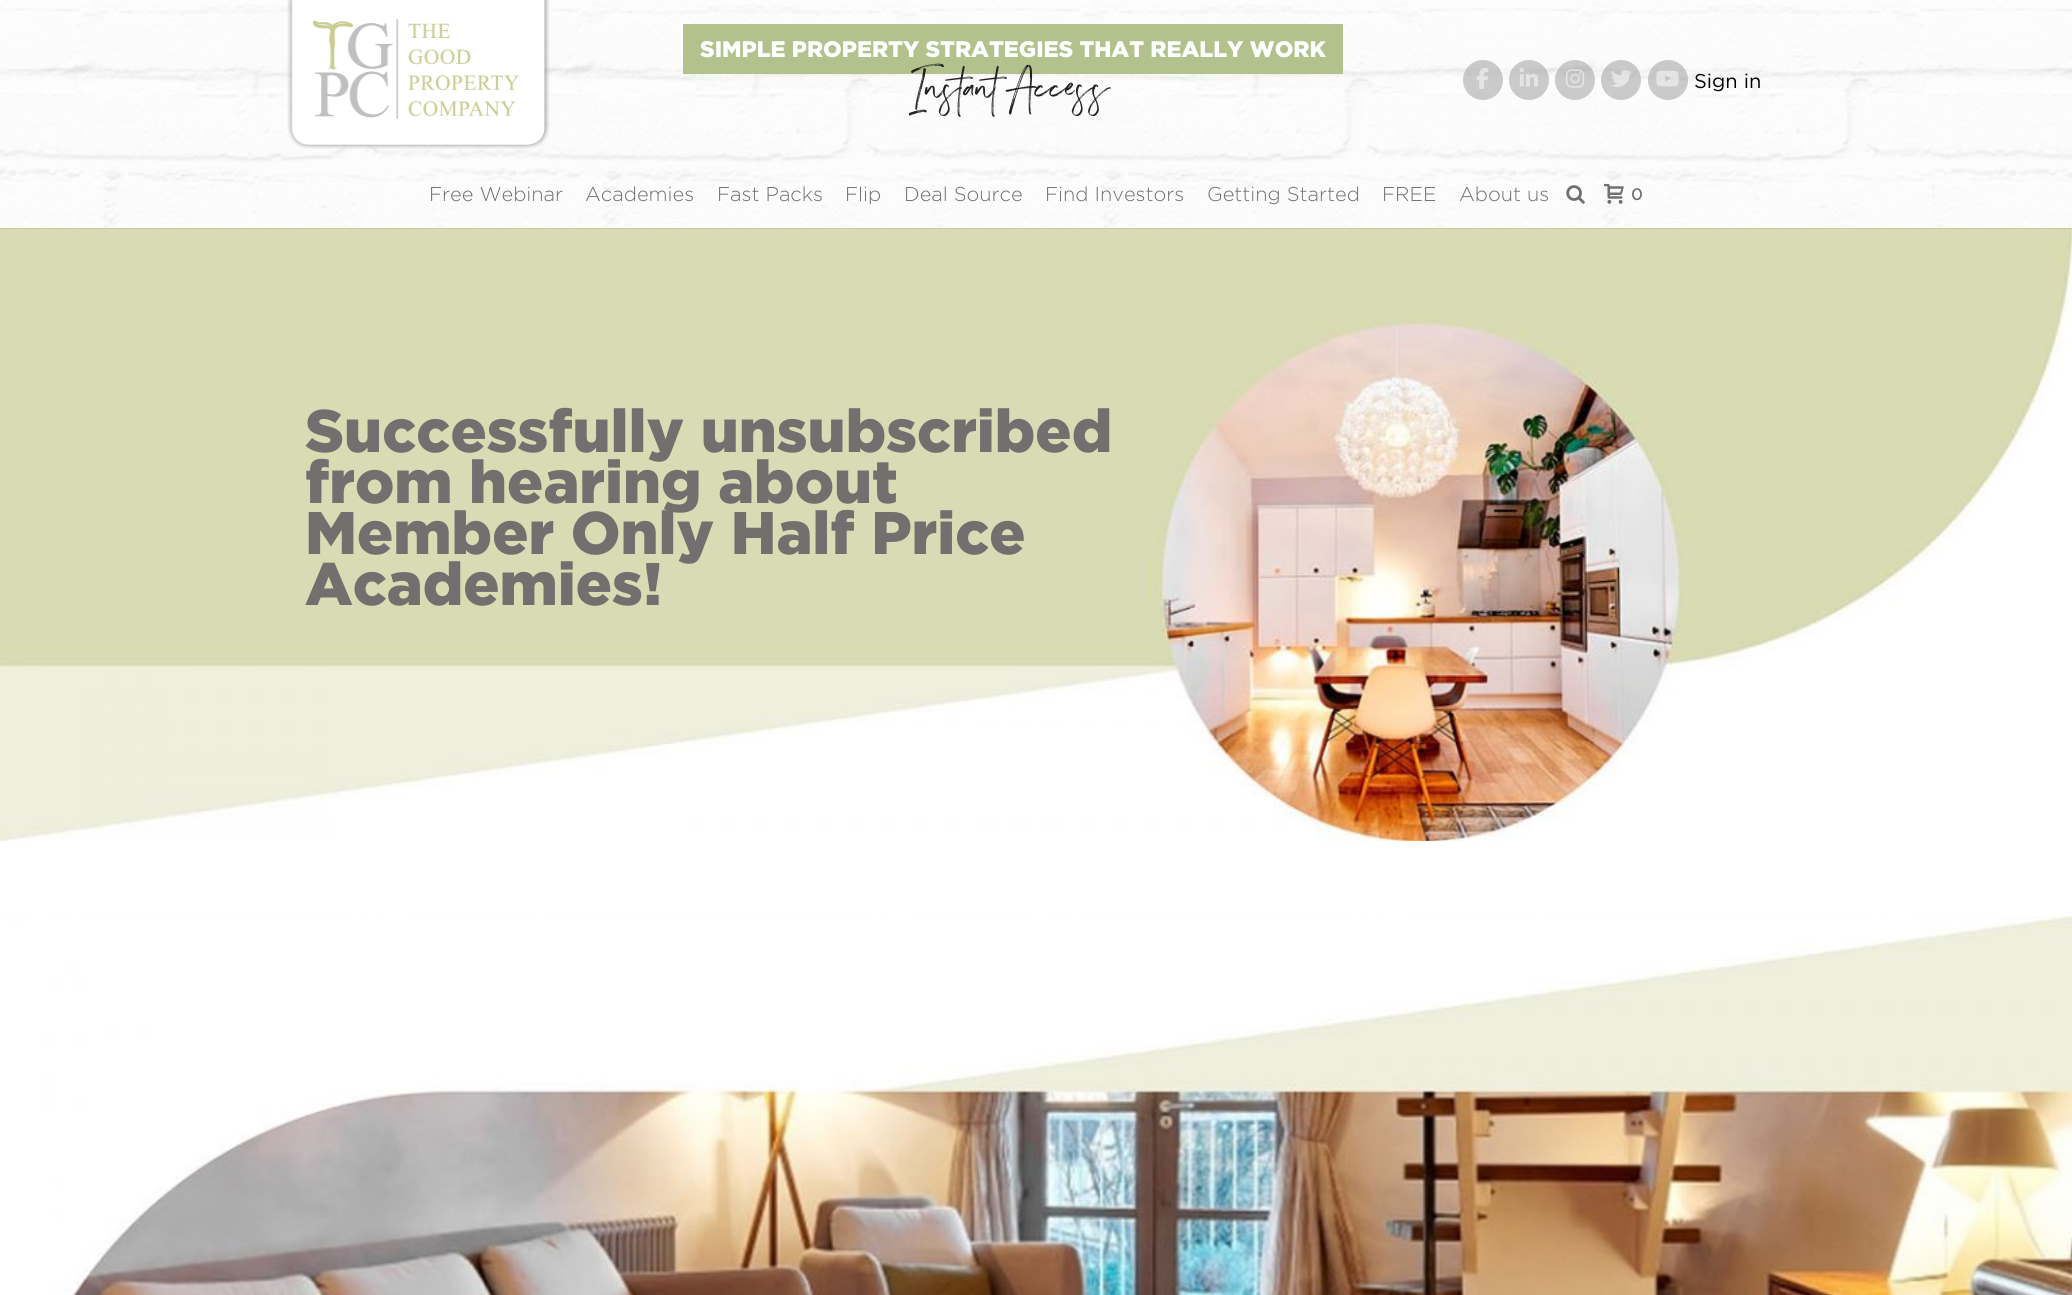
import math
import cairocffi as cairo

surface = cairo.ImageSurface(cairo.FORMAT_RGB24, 2072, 1295)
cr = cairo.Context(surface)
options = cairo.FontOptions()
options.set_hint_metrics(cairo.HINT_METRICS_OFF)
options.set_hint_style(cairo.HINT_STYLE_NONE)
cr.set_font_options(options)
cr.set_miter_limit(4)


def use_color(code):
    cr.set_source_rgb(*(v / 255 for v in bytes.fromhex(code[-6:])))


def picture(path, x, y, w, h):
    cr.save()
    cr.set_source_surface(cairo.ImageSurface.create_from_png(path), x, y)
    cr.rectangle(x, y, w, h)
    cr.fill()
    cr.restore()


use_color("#ffffff")
cr.paint()
use_color("#cacc98")
cr.rectangle(0, 228, 2072, 1)
cr.fill()
picture("img1.png", 0, 0, 2072, 228)
picture("img2.png", 287, 0, 263, 149)
use_color("#b3c28d")
cr.rectangle(683, 24, 660, 50)
cr.fill()
cr.select_font_face("Gotham Black")
cr.set_font_size(22.5)
use_color("#ffffff")
cr.move_to(700, 57)
cr.show_text("SIMPLE PROPERTY STRATEGIES THAT REALLY WORK")
cr.select_font_face("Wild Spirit")
cr.set_font_size(60)
use_color("#222222")
cr.move_to(916, 108)
cr.show_text("Instant Access")
cr.set_source_rgba(0.6, 0.6, 0.6, 0.5)
cr.new_path()
cr.arc(1483, 80, 20, 0, 2 * math.pi)
cr.fill()
picture("img3.png", 1476, 68, 13, 21)
cr.arc(1529, 80, 20, 0, 2 * math.pi)
cr.fill()
picture("img4.png", 1519, 68, 19, 19)
cr.arc(1575, 80, 20, 0, 2 * math.pi)
cr.fill()
picture("img5.png", 1565, 69, 20, 19)
cr.arc(1621, 80, 20, 0, 2 * math.pi)
cr.fill()
picture("img6.png", 1611, 70, 21, 17)
cr.arc(1668, 80, 20, 0, 2 * math.pi)
cr.fill()
picture("img7.png", 1656, 70, 23, 17)
cr.select_font_face("Gotham")
cr.set_font_size(20)
use_color("#000000")
cr.move_to(1694, 88)
cr.show_text("Sign in")
cr.select_font_face("Gotham Light")
use_color("#72706f")
cr.move_to(429, 201)
cr.show_text("Free Webinar")
cr.move_to(585, 201)
cr.show_text("Academies")
cr.move_to(717, 201)
cr.show_text("Fast Packs")
cr.move_to(845, 201)
cr.show_text("Flip")
cr.move_to(904, 201)
cr.show_text("Deal Source")
cr.move_to(1045, 201)
cr.show_text("Find Investors")
cr.move_to(1207, 201)
cr.show_text("Getting Started")
cr.move_to(1382, 201)
cr.show_text("FREE")
cr.move_to(1459, 201)
cr.show_text("About us")
picture("img8.png", 1566, 185, 19, 19)
picture("img9.png", 1604, 184, 20, 20)
cr.select_font_face("Gotham", cairo.FONT_SLANT_NORMAL, cairo.FONT_WEIGHT_BOLD)
cr.set_font_size(16)
cr.move_to(1631, 200)
cr.show_text("0")
picture("img10.png", 0, 229, 2072, 612)
cr.select_font_face("Gotham Black")
cr.set_font_size(60)
cr.move_to(305, 452)
cr.show_text("Successfully unsubscribed")
cr.move_to(305, 503)
cr.show_text("from hearing about")
cr.move_to(305, 554)
cr.show_text("Member Only Half Price")
cr.move_to(305, 605)
cr.show_text("Academies!")
picture("img12.png", 0, 916, 2072, 1)
picture("img11.png", 0, 916, 2072, 379)
surface.write_to_png("result.png")
